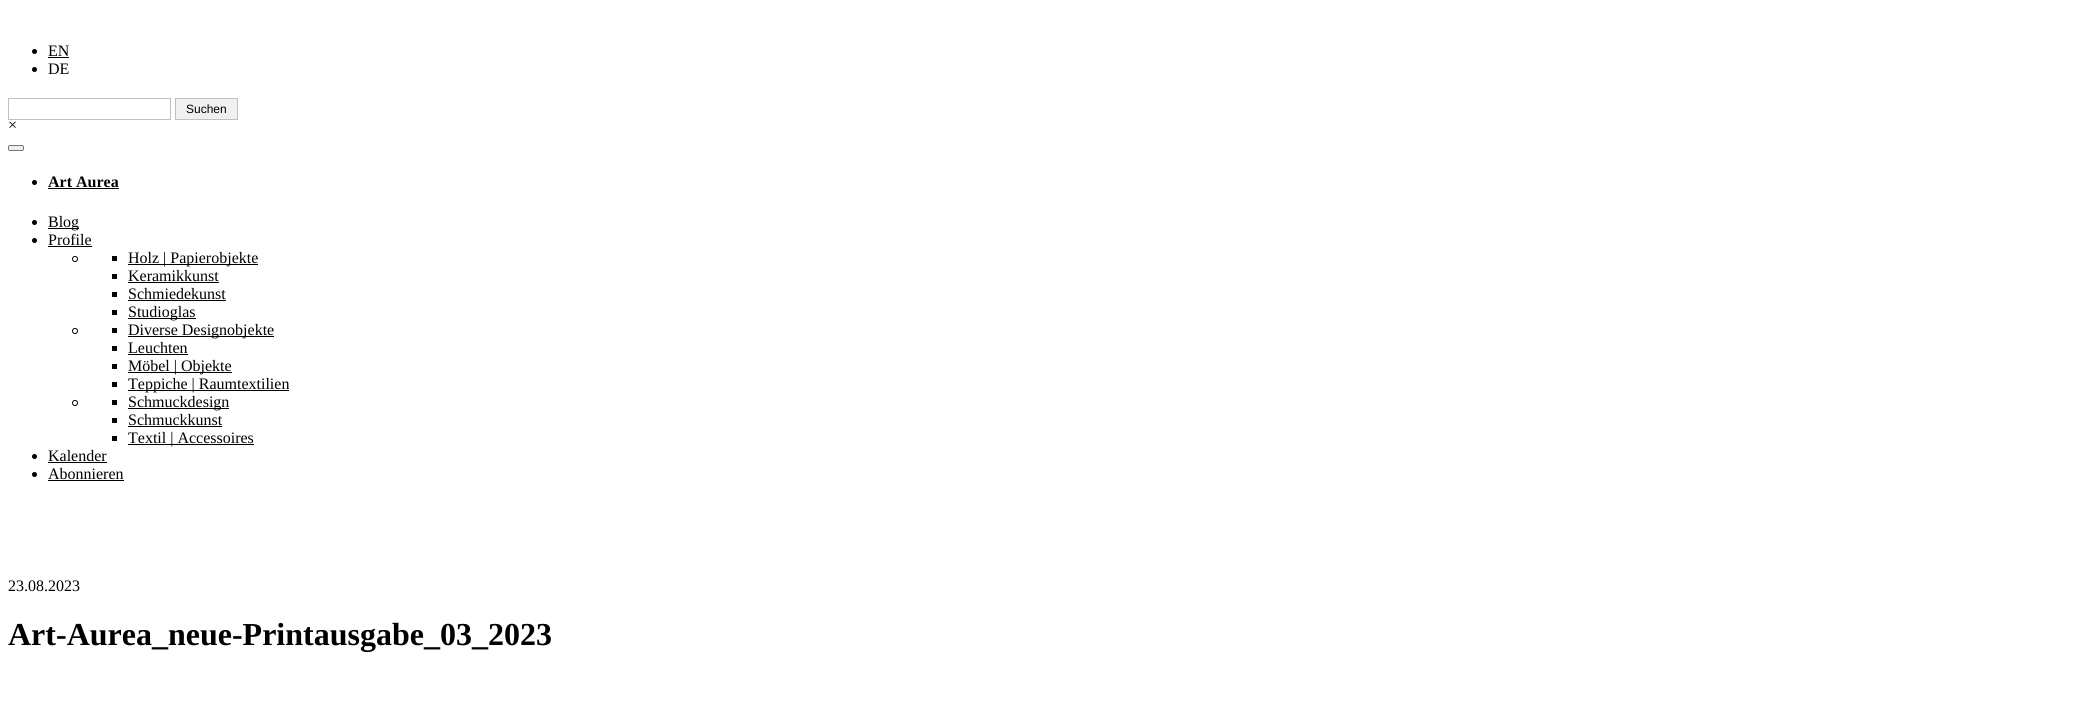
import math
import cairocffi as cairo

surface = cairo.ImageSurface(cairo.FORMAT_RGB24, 2078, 710)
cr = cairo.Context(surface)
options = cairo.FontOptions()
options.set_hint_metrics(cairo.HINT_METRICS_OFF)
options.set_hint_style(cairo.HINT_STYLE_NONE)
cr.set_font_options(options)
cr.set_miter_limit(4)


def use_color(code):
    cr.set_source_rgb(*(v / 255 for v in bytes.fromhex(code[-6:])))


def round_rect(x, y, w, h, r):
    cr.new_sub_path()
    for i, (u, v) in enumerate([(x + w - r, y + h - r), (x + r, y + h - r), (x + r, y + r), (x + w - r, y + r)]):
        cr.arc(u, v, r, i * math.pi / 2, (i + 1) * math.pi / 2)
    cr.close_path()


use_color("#ffffff")
cr.paint()
use_color("#000000")
cr.arc(34.5, 51.5, 2.5, 0, 2 * math.pi)
cr.fill()
cr.select_font_face("Liberation Serif")
cr.set_font_size(16)
cr.move_to(48, 56)
cr.show_text("EN")
cr.rectangle(48, 57, 21, 1)
cr.fill()
cr.arc(34.5, 69.5, 2.5, 0, 2 * math.pi)
cr.fill()
cr.move_to(48, 74)
cr.show_text("DE")
cr.rectangle(8.5, 98.5, 162, 21)
use_color("#c0c0c0")
cr.set_line_width(1)
cr.stroke()
use_color("#f0f0f0")
cr.rectangle(175.5, 98.5, 62, 21)
cr.fill_preserve()
use_color("#c0c0c0")
cr.stroke()
cr.select_font_face("Liberation Sans")
cr.set_font_size(12)
use_color("#000000")
cr.move_to(186, 113)
cr.show_text("Suchen")
cr.select_font_face("Liberation Serif")
cr.set_font_size(16)
cr.move_to(8, 130)
cr.show_text("×")
use_color("#efefef")
round_rect(8.5, 145.5, 15, 5, 1.5)
cr.fill_preserve()
use_color("#767676")
cr.stroke()
use_color("#000000")
cr.arc(34.5, 182.5, 2.5, 0, 2 * math.pi)
cr.fill()
cr.select_font_face("Liberation Serif", cairo.FONT_SLANT_NORMAL, cairo.FONT_WEIGHT_BOLD)
cr.move_to(48, 187)
cr.show_text("Art Aurea")
cr.rectangle(48, 188, 71, 1)
cr.fill()
cr.arc(34.5, 222.5, 2.5, 0, 2 * math.pi)
cr.fill()
cr.rectangle(48, 228, 31, 1)
cr.fill()
cr.select_font_face("Liberation Serif")
cr.move_to(48, 227)
cr.show_text("Blog")
cr.new_path()
cr.arc(34.5, 240.5, 2.5, 0, 2 * math.pi)
cr.fill()
cr.move_to(48, 245)
cr.show_text("Profile")
cr.rectangle(48, 246, 44, 1)
cr.fill()
cr.arc(75, 259, 2.5, 0, 2 * math.pi)
cr.stroke()
cr.rectangle(112, 256, 5, 5)
cr.fill()
cr.rectangle(128, 264, 130, 1)
cr.fill()
cr.move_to(128, 263)
cr.show_text("Holz | Papierobjekte")
cr.rectangle(112, 274, 5, 5)
cr.fill()
cr.move_to(128, 281)
cr.show_text("Keramikkunst")
cr.rectangle(128, 282, 91, 1)
cr.fill()
cr.rectangle(112, 292, 5, 5)
cr.fill()
cr.move_to(128, 299)
cr.show_text("Schmiedekunst")
cr.rectangle(128, 300, 98, 1)
cr.fill()
cr.rectangle(112, 310, 5, 5)
cr.fill()
cr.rectangle(128, 318, 68, 1)
cr.fill()
cr.move_to(128, 317)
cr.show_text("Studioglas")
cr.new_path()
cr.arc(75, 331, 2.5, 0, 2 * math.pi)
cr.stroke()
cr.rectangle(112, 328, 5, 5)
cr.fill()
cr.rectangle(128, 336, 146, 1)
cr.fill()
cr.move_to(128, 335)
cr.show_text("Diverse Designobjekte")
cr.rectangle(112, 346, 5, 5)
cr.fill()
cr.move_to(128, 353)
cr.show_text("Leuchten")
cr.rectangle(128, 354, 60, 1)
cr.fill()
cr.rectangle(112, 364, 5, 5)
cr.fill()
cr.rectangle(128, 372, 104, 1)
cr.fill()
cr.move_to(128, 371)
cr.show_text("Möbel | Objekte")
cr.rectangle(112, 382, 5, 5)
cr.fill()
cr.rectangle(128, 390, 161, 1)
cr.fill()
cr.move_to(128, 389)
cr.show_text("Teppiche | Raumtextilien")
cr.new_path()
cr.arc(75, 403, 2.5, 0, 2 * math.pi)
cr.stroke()
cr.rectangle(112, 400, 5, 5)
cr.fill()
cr.rectangle(128, 408, 101, 1)
cr.fill()
cr.move_to(128, 407)
cr.show_text("Schmuckdesign")
cr.rectangle(112, 418, 5, 5)
cr.fill()
cr.move_to(128, 425)
cr.show_text("Schmuckkunst")
cr.rectangle(128, 426, 94, 1)
cr.fill()
cr.rectangle(112, 436, 5, 5)
cr.fill()
cr.rectangle(128, 444, 126, 1)
cr.fill()
cr.move_to(128, 443)
cr.show_text("Textil | Accessoires")
cr.new_path()
cr.arc(34.5, 456.5, 2.5, 0, 2 * math.pi)
cr.fill()
cr.move_to(48, 461)
cr.show_text("Kalender")
cr.rectangle(48, 462, 59, 1)
cr.fill()
cr.arc(34.5, 474.5, 2.5, 0, 2 * math.pi)
cr.fill()
cr.move_to(48, 479)
cr.show_text("Abonnieren")
cr.rectangle(48, 480, 76, 1)
cr.fill()
cr.move_to(8, 591)
cr.show_text("23.08.2023")
cr.select_font_face("Liberation Serif", cairo.FONT_SLANT_NORMAL, cairo.FONT_WEIGHT_BOLD)
cr.set_font_size(32)
cr.move_to(8, 645)
cr.show_text("Art-Aurea_neue-Printausgabe_03_2023")
surface.write_to_png("result.png")
